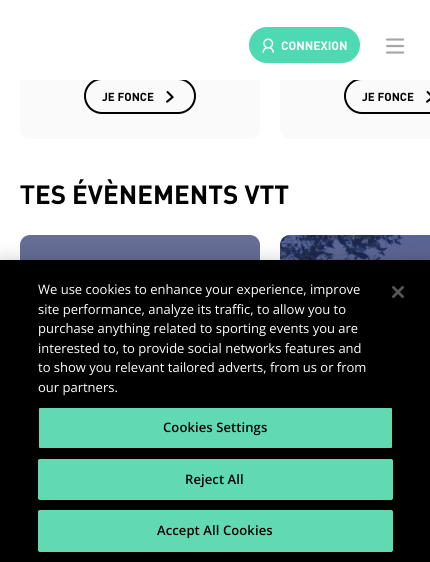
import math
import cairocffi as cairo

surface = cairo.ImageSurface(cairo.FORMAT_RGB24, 430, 562)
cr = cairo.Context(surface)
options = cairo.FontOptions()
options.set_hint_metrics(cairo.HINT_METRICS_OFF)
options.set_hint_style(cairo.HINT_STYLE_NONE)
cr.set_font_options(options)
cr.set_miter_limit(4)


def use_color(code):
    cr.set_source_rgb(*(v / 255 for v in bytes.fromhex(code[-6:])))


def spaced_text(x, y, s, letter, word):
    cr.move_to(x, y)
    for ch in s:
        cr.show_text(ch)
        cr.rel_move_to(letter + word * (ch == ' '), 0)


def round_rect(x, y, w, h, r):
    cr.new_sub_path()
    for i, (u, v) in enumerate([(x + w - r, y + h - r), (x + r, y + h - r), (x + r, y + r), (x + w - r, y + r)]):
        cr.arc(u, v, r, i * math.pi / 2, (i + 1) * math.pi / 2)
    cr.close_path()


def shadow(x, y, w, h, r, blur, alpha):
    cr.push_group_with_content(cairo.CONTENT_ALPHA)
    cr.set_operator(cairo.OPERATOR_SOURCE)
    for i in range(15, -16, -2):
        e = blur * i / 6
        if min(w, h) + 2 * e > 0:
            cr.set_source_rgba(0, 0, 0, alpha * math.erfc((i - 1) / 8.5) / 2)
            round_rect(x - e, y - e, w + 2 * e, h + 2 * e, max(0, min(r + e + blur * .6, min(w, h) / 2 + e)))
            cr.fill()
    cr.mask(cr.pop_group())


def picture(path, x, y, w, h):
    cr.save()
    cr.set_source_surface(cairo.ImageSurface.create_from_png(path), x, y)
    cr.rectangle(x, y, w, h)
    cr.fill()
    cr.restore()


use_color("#ffffff")
cr.paint()
use_color("#fafafa")
round_rect(20, -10, 240, 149, 10)
cr.fill()
round_rect(85, 79, 110, 34, 17)
use_color("#000000")
cr.stroke()
use_color("#fafafa")
cr.new_path()
cr.move_to(290, -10)
cr.line_to(430, -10)
cr.line_to(430, 139)
cr.line_to(290, 139)
cr.curve_to(284.5, 139, 280, 134.5, 280, 129)
cr.line_to(280, 0)
cr.curve_to(280, -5.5, 284.5, -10, 290, -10)
cr.close_path()
cr.fill()
round_rect(345, 79, 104, 34, 17)
use_color("#000000")
cr.stroke()
use_color("#ffffff")
cr.rectangle(20, 0, 410, 80)
cr.fill()
use_color("#4dd9b2")
round_rect(249, 27, 111, 36, 18)
cr.fill()
picture("img1.png", 262, 38, 12, 15)
cr.select_font_face("DIN", cairo.FONT_SLANT_NORMAL, cairo.FONT_WEIGHT_BOLD)
cr.set_font_size(12)
use_color("#ffffff")
cr.move_to(281, 50)
cr.show_text("CONNEXION")
picture("img2.png", 386, 38, 19, 16)
cr.set_font_size(11.5)
use_color("#000000")
cr.move_to(102, 101)
cr.show_text("JE FONCE")
picture("img3.png", 166, 91, 8, 12)
cr.move_to(362, 101)
cr.show_text("JE FONCE")
picture("img4.png", 426, 91, 4, 12)
cr.select_font_face("Noto Sans SemiBold")
cr.set_font_size(26)
cr.move_to(20, 204)
cr.show_text("T")
cr.select_font_face("DIN", cairo.FONT_SLANT_NORMAL, cairo.FONT_WEIGHT_BOLD)
cr.move_to(35, 204)
cr.show_text("ES ÉVÈNEMENTS VTT")
use_color("#666d96")
cr.new_path()
cr.move_to(30, 235)
cr.line_to(250, 235)
cr.curve_to(255.5, 235, 260, 239.5, 260, 245)
cr.line_to(260, 379)
cr.line_to(20, 379)
cr.line_to(20, 245)
cr.curve_to(20, 239.5, 24.5, 235, 30, 235)
cr.close_path()
cr.fill()
use_color("#fafafa")
cr.new_path()
cr.move_to(290, 235)
cr.line_to(430, 235)
cr.line_to(430, 531)
cr.line_to(290, 531)
cr.curve_to(284.5, 531, 280, 526.5, 280, 521)
cr.line_to(280, 245)
cr.curve_to(280, 239.5, 284.5, 235, 290, 235)
cr.close_path()
cr.fill()
picture("img5.png", 280, 235, 150, 25)
cr.set_source_rgba(0.153, 0.192, 0.42, 0.7)
cr.new_path()
cr.move_to(290, 235)
cr.line_to(430, 235)
cr.line_to(430, 379)
cr.line_to(280, 379)
cr.line_to(280, 245)
cr.curve_to(280, 239.5, 284.5, 235, 290, 235)
cr.close_path()
cr.fill()
use_color("#000000")
shadow(0, 260, 430, 302, 0, 9, 0.2)
use_color("#000000")
cr.rectangle(0, 260, 430, 302)
cr.fill()
cr.select_font_face("Open Sans")
cr.set_font_size(13)
use_color("#ffffff")
cr.move_to(38, 294)
cr.show_text("We use cookies to enhance your experience, improve")
cr.move_to(38, 314)
cr.show_text("site performance, analyze its traffic, to allow you to")
cr.move_to(38, 333)
cr.show_text("purchase anything related to sporting events you are")
cr.move_to(38, 353)
cr.show_text("interested to, to provide social networks features and")
cr.move_to(38, 372)
cr.show_text("to show you relevant tailored adverts, from us or from")
cr.move_to(38, 392)
cr.show_text("our partners.")
use_color("#61d9b2")
round_rect(38.5, 407.5, 354, 41, 1.5)
cr.fill_preserve()
use_color("#000000")
cr.set_line_width(1)
cr.stroke()
cr.select_font_face("Open Sans SemiBold")
spaced_text(163, 432, "Cookies Settings", 0.1, 0)
use_color("#61d9b2")
round_rect(38.5, 459.5, 354, 40, 1.5)
cr.fill_preserve()
cr.stroke()
use_color("#000000")
spaced_text(185, 484, "Reject All", 0.1, 0)
use_color("#61d9b2")
round_rect(38.5, 510.5, 354, 41, 1.5)
cr.fill_preserve()
cr.stroke()
use_color("#000000")
spaced_text(157, 535, "Accept All Cookies", 0.1, 0)
picture("img6.png", 392, 286, 12, 12)
surface.write_to_png("result.png")
